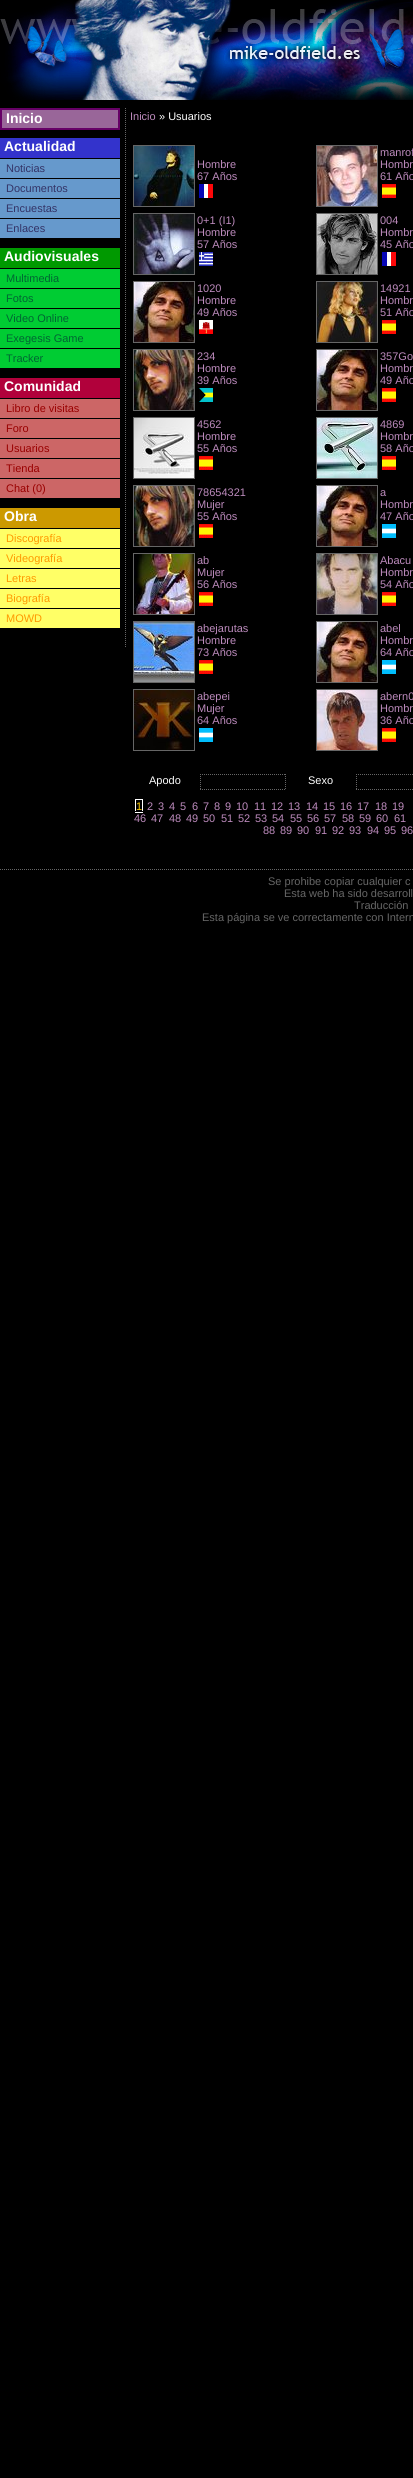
import math
import cairocffi as cairo

surface = cairo.ImageSurface(cairo.FORMAT_RGB24, 413, 2478)
cr = cairo.Context(surface)
options = cairo.FontOptions()
options.set_hint_metrics(cairo.HINT_METRICS_OFF)
options.set_hint_style(cairo.HINT_STYLE_NONE)
cr.set_font_options(options)
cr.set_miter_limit(4)


def use_color(code):
    cr.set_source_rgb(*(v / 255 for v in bytes.fromhex(code[-6:])))


def picture(path, x, y, w, h):
    cr.save()
    cr.set_source_surface(cairo.ImageSurface.create_from_png(path), x, y)
    cr.rectangle(x, y, w, h)
    cr.fill()
    cr.restore()


use_color("#000000")
cr.paint()
picture("img1.png", 0, 0, 413, 100)
cr.new_path()
cr.move_to(125.5, 108)
cr.line_to(125.5, 648)
use_color("#666666")
cr.set_line_width(1)
cr.set_dash([1, 1])
cr.stroke()
use_color("#996699")
cr.rectangle(1, 109, 118, 20)
cr.fill_preserve()
use_color("#660066")
cr.set_line_width(2)
cr.set_dash([])
cr.stroke()
cr.select_font_face("Liberation Sans", cairo.FONT_SLANT_NORMAL, cairo.FONT_WEIGHT_BOLD)
cr.set_font_size(14)
use_color("#ffffff")
cr.move_to(6, 123)
cr.show_text("Inicio")
use_color("#3333cc")
cr.rectangle(0, 138, 120, 20)
cr.fill()
use_color("#ffffff")
cr.move_to(4, 151)
cr.show_text("Actualidad")
use_color("#6699cc")
cr.rectangle(0, 159, 120, 19)
cr.fill()
cr.select_font_face("Liberation Sans")
cr.set_font_size(11)
use_color("#333366")
cr.move_to(6, 172)
cr.show_text("Noticias")
use_color("#6699cc")
cr.rectangle(0, 179, 120, 19)
cr.fill()
use_color("#333366")
cr.move_to(6, 192)
cr.show_text("Documentos")
use_color("#6699cc")
cr.rectangle(0, 199, 120, 19)
cr.fill()
use_color("#333366")
cr.move_to(6, 212)
cr.show_text("Encuestas")
use_color("#6699cc")
cr.rectangle(0, 219, 120, 19)
cr.fill()
use_color("#333366")
cr.move_to(6, 232)
cr.show_text("Enlaces")
use_color("#009900")
cr.rectangle(0, 248, 120, 20)
cr.fill()
cr.select_font_face("Liberation Sans", cairo.FONT_SLANT_NORMAL, cairo.FONT_WEIGHT_BOLD)
cr.set_font_size(14)
use_color("#ffffff")
cr.move_to(4, 261)
cr.show_text("Audiovisuales")
use_color("#00cc33")
cr.rectangle(0, 269, 120, 19)
cr.fill()
cr.select_font_face("Liberation Sans")
cr.set_font_size(11)
use_color("#006633")
cr.move_to(6, 282)
cr.show_text("Multimedia")
use_color("#00cc33")
cr.rectangle(0, 289, 120, 19)
cr.fill()
use_color("#006633")
cr.move_to(6, 302)
cr.show_text("Fotos")
use_color("#00cc33")
cr.rectangle(0, 309, 120, 19)
cr.fill()
use_color("#006633")
cr.move_to(6, 322)
cr.show_text("Video Online")
use_color("#00cc33")
cr.rectangle(0, 329, 120, 19)
cr.fill()
use_color("#006633")
cr.move_to(6, 342)
cr.show_text("Exegesis Game")
use_color("#00cc33")
cr.rectangle(0, 349, 120, 19)
cr.fill()
use_color("#006633")
cr.move_to(6, 362)
cr.show_text("Tracker")
use_color("#b1013b")
cr.rectangle(0, 378, 120, 20)
cr.fill()
cr.select_font_face("Liberation Sans", cairo.FONT_SLANT_NORMAL, cairo.FONT_WEIGHT_BOLD)
cr.set_font_size(14)
use_color("#ffffff")
cr.move_to(4, 391)
cr.show_text("Comunidad")
use_color("#cc6666")
cr.rectangle(0, 399, 120, 19)
cr.fill()
cr.select_font_face("Liberation Sans")
cr.set_font_size(11)
use_color("#990000")
cr.move_to(6, 412)
cr.show_text("Libro de visitas")
use_color("#cc6666")
cr.rectangle(0, 419, 120, 19)
cr.fill()
use_color("#990000")
cr.move_to(6, 432)
cr.show_text("Foro")
use_color("#cc6666")
cr.rectangle(0, 439, 120, 19)
cr.fill()
use_color("#990000")
cr.move_to(6, 452)
cr.show_text("Usuarios")
use_color("#cc6666")
cr.rectangle(0, 459, 120, 19)
cr.fill()
use_color("#990000")
cr.move_to(6, 472)
cr.show_text("Tienda")
use_color("#cc6666")
cr.rectangle(0, 479, 120, 19)
cr.fill()
use_color("#990000")
cr.move_to(6, 492)
cr.show_text("Chat (0)")
use_color("#cc9900")
cr.rectangle(0, 508, 120, 20)
cr.fill()
cr.select_font_face("Liberation Sans", cairo.FONT_SLANT_NORMAL, cairo.FONT_WEIGHT_BOLD)
cr.set_font_size(14)
use_color("#ffffff")
cr.move_to(4, 521)
cr.show_text("Obra")
use_color("#ffff66")
cr.rectangle(0, 529, 120, 19)
cr.fill()
cr.select_font_face("Liberation Sans")
cr.set_font_size(11)
use_color("#ff9900")
cr.move_to(6, 542)
cr.show_text("Discografía")
use_color("#ffff66")
cr.rectangle(0, 549, 120, 19)
cr.fill()
use_color("#ff9900")
cr.move_to(6, 562)
cr.show_text("Videografía")
use_color("#ffff66")
cr.rectangle(0, 569, 120, 19)
cr.fill()
use_color("#ff9900")
cr.move_to(6, 582)
cr.show_text("Letras")
use_color("#ffff66")
cr.rectangle(0, 589, 120, 19)
cr.fill()
use_color("#ff9900")
cr.move_to(6, 602)
cr.show_text("Biografía")
use_color("#ffff66")
cr.rectangle(0, 609, 120, 19)
cr.fill()
use_color("#ff9900")
cr.move_to(6, 622)
cr.show_text("MOWD")
use_color("#bd8bbd")
cr.move_to(130, 120)
cr.show_text("Inicio")
use_color("#ffffff")
cr.move_to(159, 120)
cr.show_text("» Usuarios")
cr.rectangle(133.5, 145.5, 61, 61)
use_color("#666666")
cr.set_line_width(1)
cr.stroke()
picture("img2.png", 134, 146, 60, 60)
use_color("#bd8bbd")
cr.move_to(197, 168)
cr.show_text("Hombre")
cr.move_to(197, 180)
cr.show_text("67 Años")
picture("img3.png", 199, 184, 14, 14)
cr.rectangle(316.5, 145.5, 61, 61)
use_color("#666666")
cr.stroke()
picture("img4.png", 317, 146, 60, 60)
use_color("#bd8bbd")
cr.move_to(380, 156)
cr.show_text("manrof")
cr.move_to(380, 168)
cr.show_text("Hombr")
cr.move_to(380, 180)
cr.show_text("61 Año")
picture("img5.png", 382, 184, 14, 14)
cr.rectangle(133.5, 213.5, 61, 61)
use_color("#666666")
cr.stroke()
picture("img6.png", 134, 214, 60, 60)
use_color("#bd8bbd")
cr.move_to(197, 224)
cr.show_text("0+1 (I1)")
cr.move_to(197, 236)
cr.show_text("Hombre")
cr.move_to(197, 248)
cr.show_text("57 Años")
picture("img7.png", 199, 252, 14, 14)
cr.rectangle(316.5, 213.5, 61, 61)
use_color("#666666")
cr.stroke()
picture("img8.png", 317, 214, 60, 60)
use_color("#bd8bbd")
cr.move_to(380, 224)
cr.show_text("004")
cr.move_to(380, 236)
cr.show_text("Hombr")
cr.move_to(380, 248)
cr.show_text("45 Año")
picture("img3.png", 382, 252, 14, 14)
cr.rectangle(133.5, 281.5, 61, 61)
use_color("#666666")
cr.stroke()
picture("img9.png", 134, 282, 60, 60)
use_color("#bd8bbd")
cr.move_to(197, 292)
cr.show_text("1020")
cr.move_to(197, 304)
cr.show_text("Hombre")
cr.move_to(197, 316)
cr.show_text("49 Años")
picture("img10.png", 199, 320, 14, 14)
cr.rectangle(316.5, 281.5, 61, 61)
use_color("#666666")
cr.stroke()
picture("img11.png", 317, 282, 60, 60)
use_color("#bd8bbd")
cr.move_to(380, 292)
cr.show_text("14921")
cr.move_to(380, 304)
cr.show_text("Hombr")
cr.move_to(380, 316)
cr.show_text("51 Año")
picture("img5.png", 382, 320, 14, 14)
cr.rectangle(133.5, 349.5, 61, 61)
use_color("#666666")
cr.stroke()
picture("img12.png", 134, 350, 60, 60)
use_color("#bd8bbd")
cr.move_to(197, 360)
cr.show_text("234")
cr.move_to(197, 372)
cr.show_text("Hombre")
cr.move_to(197, 384)
cr.show_text("39 Años")
picture("img13.png", 199, 388, 14, 14)
cr.rectangle(316.5, 349.5, 61, 61)
use_color("#666666")
cr.stroke()
picture("img9.png", 317, 350, 60, 60)
use_color("#bd8bbd")
cr.move_to(380, 360)
cr.show_text("357Go")
cr.move_to(380, 372)
cr.show_text("Hombr")
cr.move_to(380, 384)
cr.show_text("49 Año")
picture("img5.png", 382, 388, 14, 14)
cr.rectangle(133.5, 417.5, 61, 61)
use_color("#666666")
cr.stroke()
picture("img14.png", 134, 418, 60, 60)
use_color("#bd8bbd")
cr.move_to(197, 428)
cr.show_text("4562")
cr.move_to(197, 440)
cr.show_text("Hombre")
cr.move_to(197, 452)
cr.show_text("55 Años")
picture("img5.png", 199, 456, 14, 14)
cr.rectangle(316.5, 417.5, 61, 61)
use_color("#666666")
cr.stroke()
picture("img15.png", 317, 418, 60, 60)
use_color("#bd8bbd")
cr.move_to(380, 428)
cr.show_text("4869")
cr.move_to(380, 440)
cr.show_text("Hombr")
cr.move_to(380, 452)
cr.show_text("58 Año")
picture("img5.png", 382, 456, 14, 14)
cr.rectangle(133.5, 485.5, 61, 61)
use_color("#666666")
cr.stroke()
picture("img12.png", 134, 486, 60, 60)
use_color("#bd8bbd")
cr.move_to(197, 496)
cr.show_text("78654321")
cr.move_to(197, 508)
cr.show_text("Mujer")
cr.move_to(197, 520)
cr.show_text("55 Años")
picture("img5.png", 199, 524, 14, 14)
cr.rectangle(316.5, 485.5, 61, 61)
use_color("#666666")
cr.stroke()
picture("img9.png", 317, 486, 60, 60)
use_color("#bd8bbd")
cr.move_to(380, 496)
cr.show_text("a")
cr.move_to(380, 508)
cr.show_text("Hombr")
cr.move_to(380, 520)
cr.show_text("47 Año")
picture("img16.png", 382, 524, 14, 14)
cr.rectangle(133.5, 553.5, 61, 61)
use_color("#666666")
cr.stroke()
picture("img17.png", 134, 554, 60, 60)
use_color("#bd8bbd")
cr.move_to(197, 564)
cr.show_text("ab")
cr.move_to(197, 576)
cr.show_text("Mujer")
cr.move_to(197, 588)
cr.show_text("56 Años")
picture("img5.png", 199, 592, 14, 14)
cr.rectangle(316.5, 553.5, 61, 61)
use_color("#666666")
cr.stroke()
picture("img18.png", 317, 554, 60, 60)
use_color("#bd8bbd")
cr.move_to(380, 564)
cr.show_text("Abacu")
cr.move_to(380, 576)
cr.show_text("Hombr")
cr.move_to(380, 588)
cr.show_text("54 Año")
picture("img5.png", 382, 592, 14, 14)
cr.rectangle(133.5, 621.5, 61, 61)
use_color("#666666")
cr.stroke()
picture("img19.png", 134, 622, 60, 60)
use_color("#bd8bbd")
cr.move_to(197, 632)
cr.show_text("abejarutas")
cr.move_to(197, 644)
cr.show_text("Hombre")
cr.move_to(197, 656)
cr.show_text("73 Años")
picture("img5.png", 199, 660, 14, 14)
cr.rectangle(316.5, 621.5, 61, 61)
use_color("#666666")
cr.stroke()
picture("img9.png", 317, 622, 60, 60)
use_color("#bd8bbd")
cr.move_to(380, 632)
cr.show_text("abel")
cr.move_to(380, 644)
cr.show_text("Hombr")
cr.move_to(380, 656)
cr.show_text("64 Año")
picture("img16.png", 382, 660, 14, 14)
cr.rectangle(133.5, 689.5, 61, 61)
use_color("#666666")
cr.stroke()
picture("img20.png", 134, 690, 60, 60)
use_color("#bd8bbd")
cr.move_to(197, 700)
cr.show_text("abepei")
cr.move_to(197, 712)
cr.show_text("Mujer")
cr.move_to(197, 724)
cr.show_text("64 Años")
picture("img16.png", 199, 728, 14, 14)
cr.rectangle(316.5, 689.5, 61, 61)
use_color("#666666")
cr.stroke()
picture("img21.png", 317, 690, 60, 60)
use_color("#bd8bbd")
cr.move_to(380, 700)
cr.show_text("abern0")
cr.move_to(380, 712)
cr.show_text("Hombr")
cr.move_to(380, 724)
cr.show_text("36 Año")
picture("img5.png", 382, 728, 14, 14)
use_color("#ffffff")
cr.move_to(149, 784)
cr.show_text("Apodo")
cr.new_path()
cr.move_to(200, 774.5)
cr.line_to(286, 774.5)
use_color("#666666")
cr.set_dash([1, 1])
cr.stroke()
cr.new_path()
cr.move_to(285.5, 774)
cr.line_to(285.5, 790)
cr.stroke()
cr.new_path()
cr.move_to(200, 789.5)
cr.line_to(286, 789.5)
cr.stroke()
cr.new_path()
cr.move_to(200.5, 774)
cr.line_to(200.5, 790)
cr.stroke()
use_color("#ffffff")
cr.move_to(308, 784)
cr.show_text("Sexo")
cr.new_path()
cr.move_to(356, 774.5)
cr.line_to(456, 774.5)
cr.move_to(356, 789.5)
cr.line_to(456, 789.5)
cr.move_to(356.5, 774)
cr.line_to(356.5, 790)
use_color("#666666")
cr.stroke()
cr.rectangle(135.5, 799.5, 7, 13)
use_color("#ffffff")
cr.set_dash([])
cr.stroke()
use_color("#ffcc00")
cr.move_to(136, 810)
cr.show_text("1")
use_color("#bd8bbd")
cr.move_to(147, 810)
cr.show_text("2")
cr.move_to(158, 810)
cr.show_text("3")
cr.move_to(169, 810)
cr.show_text("4")
cr.move_to(180, 810)
cr.show_text("5")
cr.move_to(192, 810)
cr.show_text("6")
cr.move_to(203, 810)
cr.show_text("7")
cr.move_to(214, 810)
cr.show_text("8")
cr.move_to(225, 810)
cr.show_text("9")
cr.move_to(236, 810)
cr.show_text("10")
cr.move_to(254, 810)
cr.show_text("11")
cr.move_to(271, 810)
cr.show_text("12")
cr.move_to(288, 810)
cr.show_text("13")
cr.move_to(306, 810)
cr.show_text("14")
cr.move_to(323, 810)
cr.show_text("15")
cr.move_to(340, 810)
cr.show_text("16")
cr.move_to(357, 810)
cr.show_text("17")
cr.move_to(375, 810)
cr.show_text("18")
cr.move_to(392, 810)
cr.show_text("19")
cr.rectangle(133.5, 811.5, 13, 13)
use_color("#000000")
cr.stroke()
use_color("#bd8bbd")
cr.move_to(134, 822)
cr.show_text("46")
cr.move_to(151, 822)
cr.show_text("47")
cr.move_to(169, 822)
cr.show_text("48")
cr.move_to(186, 822)
cr.show_text("49")
cr.move_to(203, 822)
cr.show_text("50")
cr.move_to(221, 822)
cr.show_text("51")
cr.move_to(238, 822)
cr.show_text("52")
cr.move_to(255, 822)
cr.show_text("53")
cr.move_to(272, 822)
cr.show_text("54")
cr.move_to(290, 822)
cr.show_text("55")
cr.move_to(307, 822)
cr.show_text("56")
cr.move_to(324, 822)
cr.show_text("57")
cr.move_to(342, 822)
cr.show_text("58")
cr.move_to(359, 822)
cr.show_text("59")
cr.move_to(376, 822)
cr.show_text("60")
cr.move_to(394, 822)
cr.show_text("61")
cr.move_to(263, 834)
cr.show_text("88")
cr.move_to(280, 834)
cr.show_text("89")
cr.move_to(297, 834)
cr.show_text("90")
cr.move_to(315, 834)
cr.show_text("91")
cr.move_to(332, 834)
cr.show_text("92")
cr.move_to(349, 834)
cr.show_text("93")
cr.move_to(367, 834)
cr.show_text("94")
cr.move_to(384, 834)
cr.show_text("95")
cr.move_to(401, 834)
cr.show_text("96")
cr.new_path()
cr.move_to(0, 869.5)
cr.line_to(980, 869.5)
use_color("#666666")
cr.set_dash([1, 1])
cr.stroke()
cr.move_to(268, 885)
cr.show_text("Se prohibe copiar cualquier c")
cr.move_to(284, 897)
cr.show_text("Esta web ha sido desarroll")
cr.move_to(354, 909)
cr.show_text("Traducción")
cr.move_to(202, 921)
cr.show_text("Esta página se ve correctamente con Intern")
surface.write_to_png("result.png")
